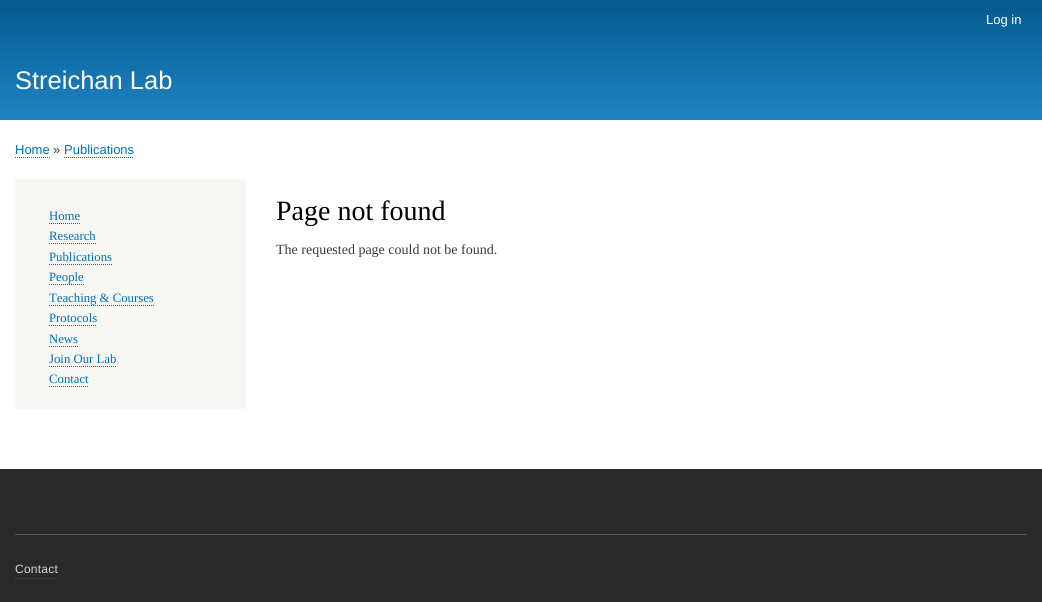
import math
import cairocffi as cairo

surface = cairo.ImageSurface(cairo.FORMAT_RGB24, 1042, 602)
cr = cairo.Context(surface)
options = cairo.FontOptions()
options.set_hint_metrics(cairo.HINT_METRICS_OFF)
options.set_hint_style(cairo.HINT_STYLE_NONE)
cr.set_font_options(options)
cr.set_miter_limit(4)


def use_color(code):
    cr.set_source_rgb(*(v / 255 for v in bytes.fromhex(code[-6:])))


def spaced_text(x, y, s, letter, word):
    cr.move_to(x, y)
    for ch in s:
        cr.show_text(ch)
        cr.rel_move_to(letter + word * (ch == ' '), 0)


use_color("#ffffff")
cr.paint()
gradient = cairo.LinearGradient(521, 0, 521, 120)
gradient.add_color_stop_rgba(0, 0.02, 0.353, 0.557, 1)
gradient.add_color_stop_rgba(1, 0.114, 0.518, 0.765, 1)
cr.set_source(gradient)
cr.rectangle(0, 0, 1042, 120)
cr.fill()
cr.select_font_face("Liberation Sans")
cr.set_font_size(13)
use_color("#fffeff")
cr.move_to(986, 24)
cr.show_text("Log in")
cr.set_font_size(25.5)
cr.move_to(15, 89)
cr.show_text("Streichan Lab")
cr.set_font_size(13)
use_color("#0071b3")
cr.move_to(15, 154)
cr.show_text("Home")
cr.new_path()
cr.move_to(15, 157.5)
cr.line_to(50, 157.5)
cr.set_line_width(1)
cr.set_dash([1, 1])
cr.stroke()
use_color("#3b3b3b")
cr.move_to(53, 154)
cr.show_text("»")
cr.new_path()
cr.move_to(64, 157.5)
cr.line_to(134, 157.5)
use_color("#0071b3")
cr.stroke()
cr.move_to(64, 154)
cr.show_text("Publications")
use_color("#f6f6f2")
cr.rectangle(15.5, 179.5, 230, 229)
cr.fill_preserve()
use_color("#f9f9f9")
cr.set_dash([])
cr.stroke()
cr.select_font_face("Liberation Serif")
cr.set_font_size(12.75)
use_color("#0071b3")
cr.move_to(49, 220)
cr.show_text("Home")
cr.new_path()
cr.move_to(49, 223.5)
cr.line_to(80, 223.5)
cr.set_dash([1, 1])
cr.stroke()
cr.move_to(49, 240)
cr.show_text("Research")
cr.new_path()
cr.move_to(49, 243.5)
cr.line_to(96, 243.5)
cr.stroke()
cr.move_to(49, 261)
cr.show_text("Publications")
cr.new_path()
cr.move_to(49, 264.5)
cr.line_to(112, 264.5)
cr.stroke()
cr.move_to(49, 281)
cr.show_text("People")
cr.new_path()
cr.move_to(49, 284.5)
cr.line_to(84, 284.5)
cr.stroke()
cr.move_to(49, 302)
cr.show_text("Teaching & Courses")
cr.new_path()
cr.move_to(49, 305.5)
cr.line_to(154, 305.5)
cr.stroke()
cr.move_to(49, 322)
cr.show_text("Protocols")
cr.new_path()
cr.move_to(49, 325.5)
cr.line_to(97, 325.5)
cr.stroke()
cr.move_to(49, 343)
cr.show_text("News")
cr.new_path()
cr.move_to(49, 346.5)
cr.line_to(78, 346.5)
cr.stroke()
cr.move_to(49, 363)
cr.show_text("Join Our Lab")
cr.new_path()
cr.move_to(49, 366.5)
cr.line_to(116, 366.5)
cr.stroke()
cr.move_to(49, 383)
cr.show_text("Contact")
cr.new_path()
cr.move_to(49, 386.5)
cr.line_to(89, 386.5)
cr.stroke()
cr.set_font_size(28)
use_color("#000000")
cr.move_to(276, 220)
cr.show_text("Page not found")
cr.set_font_size(14)
use_color("#3b3b3b")
cr.move_to(276, 254)
cr.show_text("The requested page could not be found.")
use_color("#292929")
cr.rectangle(0, 469, 1042, 133)
cr.fill()
use_color("#555555")
cr.rectangle(15, 534, 1012, 1)
cr.fill()
cr.new_path()
cr.move_to(15, 578.5)
cr.line_to(58, 578.5)
use_color("#494949")
cr.stroke()
cr.select_font_face("Liberation Sans")
cr.set_font_size(12)
use_color("#d4d4d4")
spaced_text(15, 573, "Contact", 0.25, 0)
surface.write_to_png("result.png")
